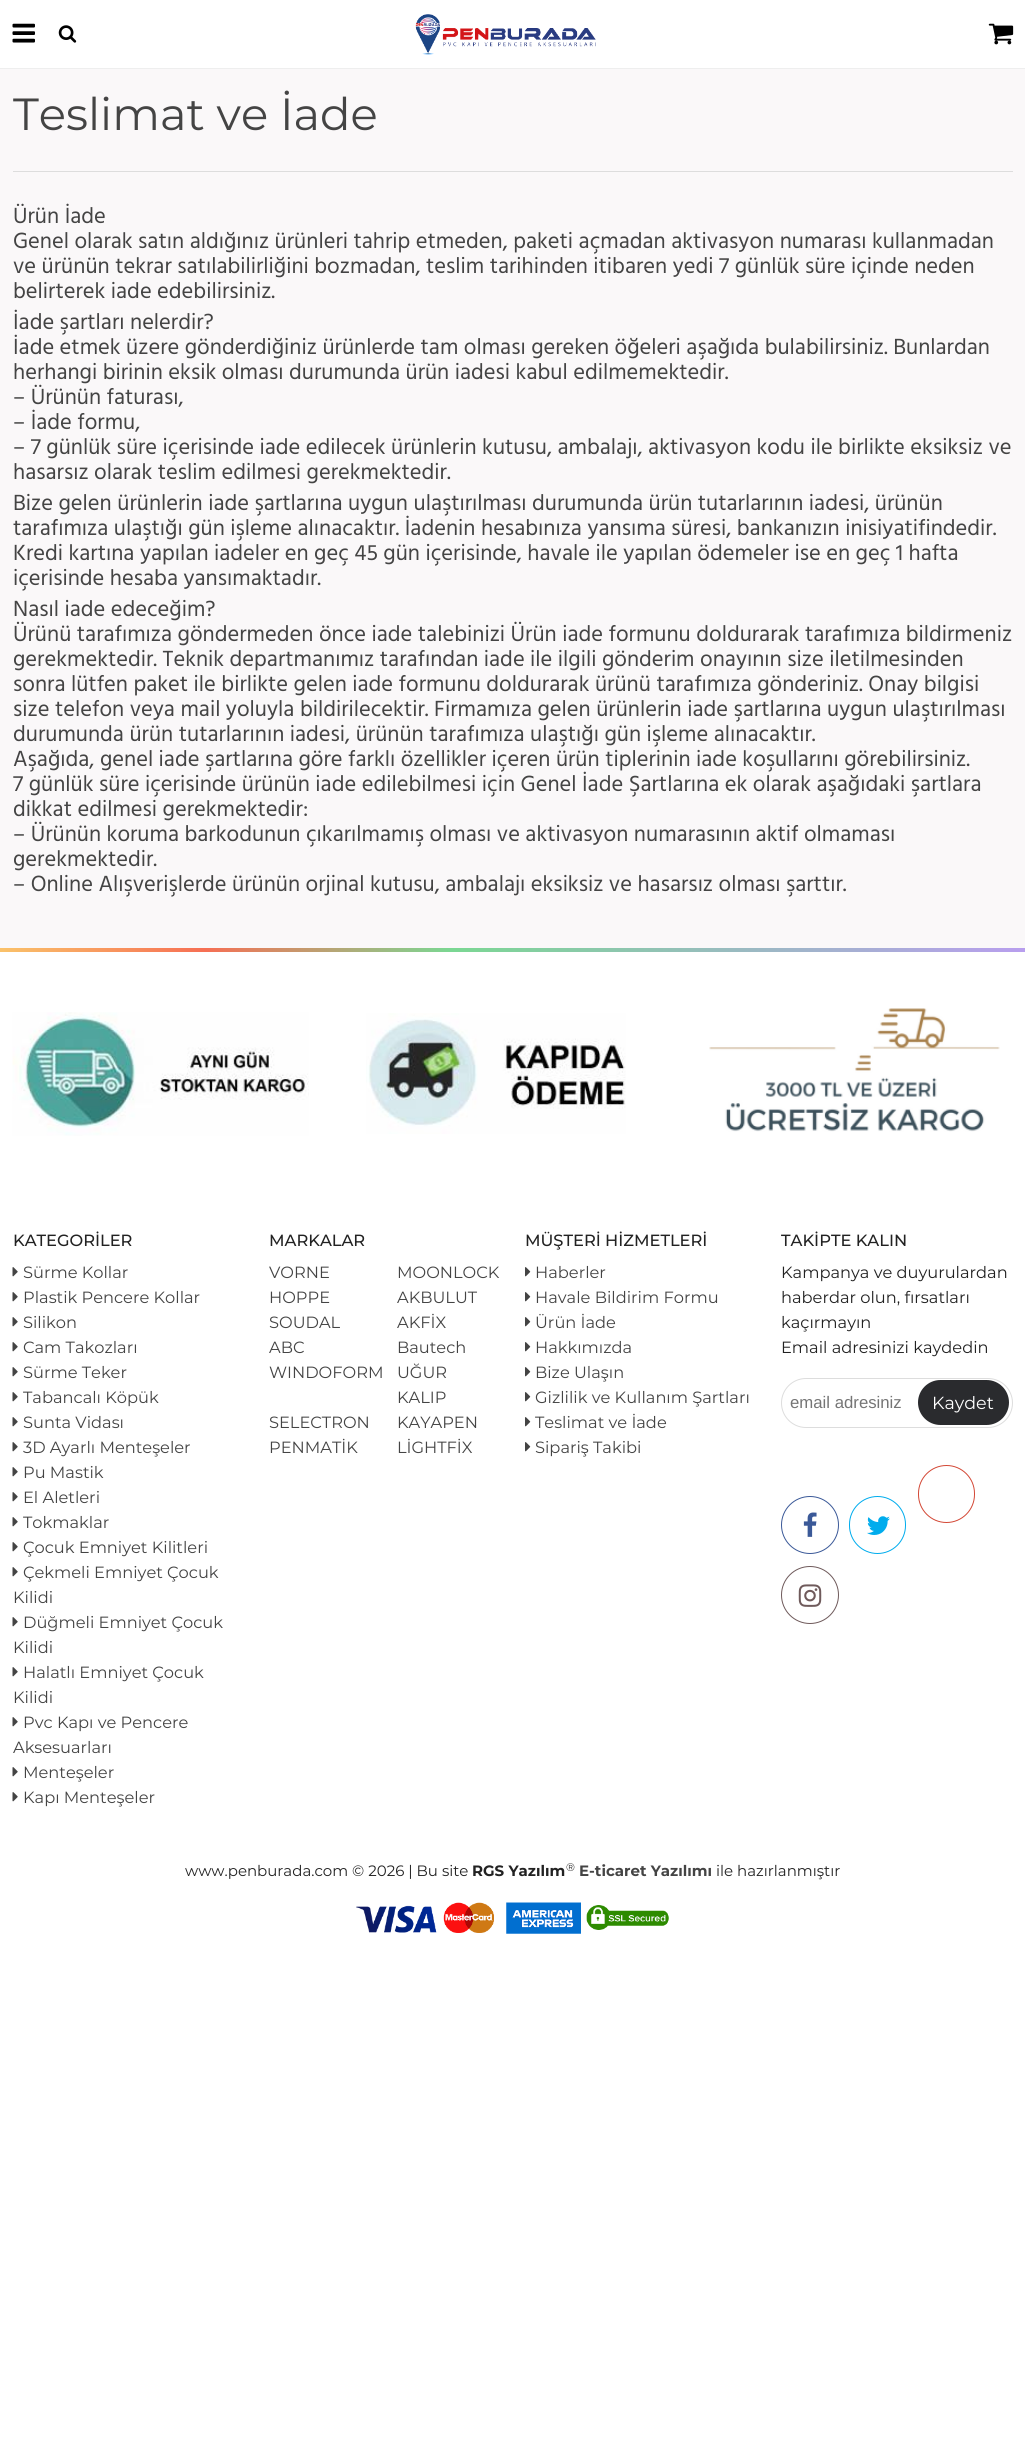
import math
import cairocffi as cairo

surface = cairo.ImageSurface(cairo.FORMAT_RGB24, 1025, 2442)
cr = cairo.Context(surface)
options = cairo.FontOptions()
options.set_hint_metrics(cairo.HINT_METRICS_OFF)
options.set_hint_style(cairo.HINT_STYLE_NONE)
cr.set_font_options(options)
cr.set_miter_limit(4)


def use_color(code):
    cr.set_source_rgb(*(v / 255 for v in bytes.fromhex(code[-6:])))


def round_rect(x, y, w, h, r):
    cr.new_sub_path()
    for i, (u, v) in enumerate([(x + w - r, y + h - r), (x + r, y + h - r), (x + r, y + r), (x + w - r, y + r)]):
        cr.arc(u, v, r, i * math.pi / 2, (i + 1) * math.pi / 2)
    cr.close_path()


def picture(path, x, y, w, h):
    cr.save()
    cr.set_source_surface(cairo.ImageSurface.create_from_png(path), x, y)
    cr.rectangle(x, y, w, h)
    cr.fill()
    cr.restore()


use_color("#ffffff")
cr.paint()
use_color("#faf8f9")
cr.rectangle(0, 69, 1025, 879)
cr.fill()
use_color("#eeeeee")
cr.rectangle(0, 68, 1025, 1)
cr.fill()
picture("img1.png", 12, 23, 23, 20)
picture("img2.png", 58, 25, 19, 18)
picture("img3.png", 415, 14, 181, 41)
picture("img4.png", 988, 23, 26, 22)
cr.select_font_face("Montserrat")
cr.set_font_size(45)
use_color("#444444")
cr.move_to(13, 130)
cr.show_text("Teslimat ve İade")
use_color("#dddddd")
cr.rectangle(13, 171, 1000, 1)
cr.fill()
cr.select_font_face("Hind Madurai")
cr.set_font_size(22.5)
use_color("#444444")
cr.move_to(13, 223)
cr.show_text("Ürün İade")
cr.move_to(13, 248)
cr.show_text("Genel olarak satın aldığınız ürünleri tahrip etmeden, paketi açmadan aktivasyon numarası kullanmadan")
cr.move_to(13, 273)
cr.show_text("ve ürünün tekrar satılabilirliğini bozmadan, teslim tarihinden itibaren yedi 7 günlük süre içinde neden")
cr.move_to(13, 298)
cr.show_text("belirterek iade edebilirsiniz.")
cr.move_to(13, 329)
cr.show_text("İade şartları nelerdir?")
cr.move_to(13, 354)
cr.show_text("İade etmek üzere gönderdiğiniz ürünlerde tam olması gereken öğeleri aşağıda bulabilirsiniz. Bunlardan")
cr.move_to(13, 379)
cr.show_text("herhangi birinin eksik olması durumunda ürün iadesi kabul edilmemektedir.")
cr.move_to(13, 404)
cr.show_text("– Ürünün faturası,")
cr.move_to(13, 429)
cr.show_text("– İade formu,")
cr.move_to(13, 454)
cr.show_text("– 7 günlük süre içerisinde iade edilecek ürünlerin kutusu, ambalajı, aktivasyon kodu ile birlikte eksiksiz ve")
cr.move_to(13, 479)
cr.show_text("hasarsız olarak teslim edilmesi gerekmektedir.")
cr.move_to(13, 510)
cr.show_text("Bize gelen ürünlerin iade şartlarına uygun ulaştırılması durumunda ürün tutarlarının iadesi, ürünün")
cr.move_to(13, 535)
cr.show_text("tarafımıza ulaştığı gün işleme alınacaktır. İadenin hesabınıza yansıma süresi, bankanızın inisiyatifindedir.")
cr.move_to(13, 560)
cr.show_text("Kredi kartına yapılan iadeler en geç 45 gün içerisinde, havale ile yapılan ödemeler ise en geç 1 hafta")
cr.move_to(13, 585)
cr.show_text("içerisinde hesaba yansımaktadır.")
cr.move_to(13, 616)
cr.show_text("Nasıl iade edeceğim?")
cr.move_to(13, 641)
cr.show_text("Ürünü tarafımıza göndermeden önce iade talebinizi Ürün iade formunu doldurarak tarafımıza bildirmeniz")
cr.move_to(13, 666)
cr.show_text("gerekmektedir. Teknik departmanımız tarafından iade ile ilgili gönderim onayının size iletilmesinden")
cr.move_to(13, 691)
cr.show_text("sonra lütfen paket ile birlikte gelen iade formunu doldurarak ürünü tarafımıza gönderiniz. Onay bilgisi")
cr.move_to(13, 716)
cr.show_text("size telefon veya mail yoluyla bildirilecektir. Firmamıza gelen ürünlerin iade şartlarına uygun ulaştırılması")
cr.move_to(13, 741)
cr.show_text("durumunda ürün tutarlarının iadesi, ürünün tarafımıza ulaştığı gün işleme alınacaktır.")
cr.move_to(13, 766)
cr.show_text("Aşağıda, genel iade şartlarına göre farklı özellikler içeren ürün tiplerinin iade koşullarını görebilirsiniz.")
cr.move_to(13, 791)
cr.show_text("7 günlük süre içerisinde ürünün iade edilebilmesi için Genel İade Şartlarına ek olarak aşağıdaki şartlara")
cr.move_to(13, 816)
cr.show_text("dikkat edilmesi gerekmektedir:")
cr.move_to(13, 841)
cr.show_text("– Ürünün koruma barkodunun çıkarılmamış olması ve aktivasyon numarasının aktif olmaması")
cr.move_to(13, 866)
cr.show_text("gerekmektedir.")
cr.move_to(13, 891)
cr.show_text("– Online Alışverişlerde ürünün orjinal kutusu, ambalajı eksiksiz ve hasarsız olması şarttır.")
gradient = cairo.LinearGradient(0, 949, 1025, 949)
gradient.add_color_stop_rgba(0, 0.98, 0.761, 0.416, 1)
gradient.add_color_stop_rgba(0.2, 0.965, 0.435, 0.329, 1)
gradient.add_color_stop_rgba(0.44, 0.482, 0.843, 0.576, 1)
gradient.add_color_stop_rgba(1, 0.722, 0.62, 0.933, 1)
cr.set_source(gradient)
cr.rectangle(0, 948, 1025, 4)
cr.fill()
picture("img5.png", 12, 1012, 297, 124)
picture("img6.png", 366, 1013, 260, 121)
picture("img7.png", 709, 1008, 291, 124)
cr.select_font_face("Montserrat Medium")
cr.set_font_size(16.25)
use_color("#222222")
cr.move_to(13, 1246)
cr.show_text("KATEGORİLER")
picture("img8.png", 12, 1267, 6, 10)
cr.select_font_face("Montserrat")
use_color("#444444")
cr.move_to(23, 1278)
cr.show_text("Sürme Kollar")
picture("img8.png", 12, 1292, 6, 10)
cr.move_to(23, 1303)
cr.show_text("Plastik Pencere Kollar")
picture("img8.png", 12, 1317, 6, 10)
cr.move_to(23, 1328)
cr.show_text("Silikon")
picture("img8.png", 12, 1342, 6, 10)
cr.move_to(23, 1353)
cr.show_text("Cam Takozları")
picture("img8.png", 12, 1367, 6, 10)
cr.move_to(23, 1378)
cr.show_text("Sürme Teker")
picture("img8.png", 12, 1392, 6, 10)
cr.move_to(23, 1403)
cr.show_text("Tabancalı Köpük")
picture("img8.png", 12, 1417, 6, 10)
cr.move_to(23, 1428)
cr.show_text("Sunta Vidası")
picture("img8.png", 12, 1442, 6, 10)
cr.move_to(23, 1453)
cr.show_text("3D Ayarlı Menteşeler")
picture("img8.png", 12, 1467, 6, 10)
cr.move_to(23, 1478)
cr.show_text("Pu Mastik")
picture("img8.png", 12, 1492, 6, 10)
cr.move_to(23, 1503)
cr.show_text("El Aletleri")
picture("img8.png", 12, 1517, 6, 10)
cr.move_to(23, 1528)
cr.show_text("Tokmaklar")
picture("img8.png", 12, 1542, 6, 10)
cr.move_to(23, 1553)
cr.show_text("Çocuk Emniyet Kilitleri")
picture("img8.png", 12, 1567, 6, 10)
cr.move_to(23, 1578)
cr.show_text("Çekmeli Emniyet Çocuk")
cr.move_to(13, 1603)
cr.show_text("Kilidi")
picture("img8.png", 12, 1617, 6, 10)
cr.move_to(23, 1628)
cr.show_text("Düğmeli Emniyet Çocuk")
cr.move_to(13, 1653)
cr.show_text("Kilidi")
picture("img8.png", 12, 1667, 6, 10)
cr.move_to(23, 1678)
cr.show_text("Halatlı Emniyet Çocuk")
cr.move_to(13, 1703)
cr.show_text("Kilidi")
picture("img8.png", 12, 1717, 6, 10)
cr.move_to(23, 1728)
cr.show_text("Pvc Kapı ve Pencere")
cr.move_to(13, 1753)
cr.show_text("Aksesuarları")
picture("img8.png", 12, 1767, 6, 10)
cr.move_to(23, 1778)
cr.show_text("Menteşeler")
picture("img8.png", 12, 1792, 6, 10)
cr.move_to(23, 1803)
cr.show_text("Kapı Menteşeler")
cr.select_font_face("Montserrat Medium")
use_color("#222222")
cr.move_to(269, 1246)
cr.show_text("MARKALAR")
cr.select_font_face("Montserrat")
use_color("#444444")
cr.move_to(269, 1278)
cr.show_text("VORNE")
cr.move_to(397, 1278)
cr.show_text("MOONLOCK")
cr.move_to(269, 1303)
cr.show_text("HOPPE")
cr.move_to(397, 1303)
cr.show_text("AKBULUT")
cr.move_to(269, 1328)
cr.show_text("SOUDAL")
cr.move_to(397, 1328)
cr.show_text("AKFİX")
cr.move_to(269, 1353)
cr.show_text("ABC")
cr.move_to(397, 1353)
cr.show_text("Bautech")
cr.move_to(269, 1378)
cr.show_text("WINDOFORM")
cr.move_to(397, 1378)
cr.show_text("UĞUR")
cr.move_to(397, 1403)
cr.show_text("KALIP")
cr.move_to(269, 1428)
cr.show_text("SELECTRON")
cr.move_to(397, 1428)
cr.show_text("KAYAPEN")
cr.move_to(269, 1453)
cr.show_text("PENMATİK")
cr.move_to(397, 1453)
cr.show_text("LİGHTFİX")
cr.select_font_face("Montserrat Medium")
use_color("#222222")
cr.move_to(525, 1246)
cr.show_text("MÜŞTERİ HİZMETLERİ")
picture("img9.png", 525, 1267, 6, 10)
cr.select_font_face("Montserrat")
use_color("#444444")
cr.move_to(535, 1278)
cr.show_text("Haberler")
picture("img9.png", 525, 1292, 6, 10)
cr.move_to(535, 1303)
cr.show_text("Havale Bildirim Formu")
picture("img9.png", 525, 1317, 6, 10)
cr.move_to(535, 1328)
cr.show_text("Ürün İade")
picture("img9.png", 525, 1342, 6, 10)
cr.move_to(535, 1353)
cr.show_text("Hakkımızda")
picture("img9.png", 525, 1367, 6, 10)
cr.move_to(535, 1378)
cr.show_text("Bize Ulaşın")
picture("img9.png", 525, 1392, 6, 10)
cr.move_to(535, 1403)
cr.show_text("Gizlilik ve Kullanım Şartları")
picture("img9.png", 525, 1417, 6, 10)
cr.move_to(535, 1428)
cr.show_text("Teslimat ve İade")
picture("img9.png", 525, 1442, 6, 10)
cr.move_to(535, 1453)
cr.show_text("Sipariş Takibi")
cr.select_font_face("Montserrat Medium")
use_color("#222222")
cr.move_to(781, 1246)
cr.show_text("TAKİPTE KALIN")
cr.select_font_face("Montserrat")
cr.move_to(781, 1278)
cr.show_text("Kampanya ve duyurulardan")
cr.move_to(781, 1303)
cr.show_text("haberdar olun, fırsatları")
cr.move_to(781, 1328)
cr.show_text("kaçırmayın")
cr.move_to(781, 1353)
cr.show_text("Email adresinizi kaydedin")
round_rect(781.5, 1378.5, 231, 49, 24.5)
use_color("#dddddd")
cr.set_line_width(1)
cr.stroke()
cr.select_font_face("Liberation Sans")
cr.set_font_size(16.75)
use_color("#757575")
cr.move_to(790, 1408)
cr.show_text("email adresiniz")
use_color("#2a2b2e")
round_rect(918, 1380, 91, 45, 22.5)
cr.fill()
cr.select_font_face("Montserrat")
cr.set_font_size(17.5)
use_color("#ffffff")
cr.move_to(932, 1409)
cr.show_text("Kaydet")
cr.new_path()
cr.arc(810, 1525, 28.5, 0, 2 * math.pi)
use_color("#3b5998")
cr.stroke()
picture("img10.png", 803, 1512, 14, 25)
round_rect(849.5, 1496.5, 56, 57, 28)
use_color("#00aced")
cr.stroke()
picture("img11.png", 867, 1516, 23, 19)
round_rect(918.5, 1465.5, 56, 57, 28)
use_color("#d34836")
cr.stroke()
cr.arc(810, 1595, 28.5, 0, 2 * math.pi)
use_color("#6f5a5b")
cr.stroke()
picture("img12.png", 798, 1584, 24, 23)
cr.set_font_size(15)
use_color("#222222")
cr.move_to(185, 1876)
cr.show_text("www.penburada.com © 2026 | Bu site")
cr.select_font_face("Montserrat", cairo.FONT_SLANT_NORMAL, cairo.FONT_WEIGHT_BOLD)
cr.move_to(472, 1876)
cr.show_text("RGS Yazılım")
cr.select_font_face("Montserrat")
cr.set_font_size(11)
cr.move_to(566, 1871)
cr.show_text("®")
cr.select_font_face("Montserrat", cairo.FONT_SLANT_NORMAL, cairo.FONT_WEIGHT_BOLD)
cr.set_font_size(15)
use_color("#444444")
cr.move_to(579, 1876)
cr.show_text("E-ticaret Yazılımı")
cr.select_font_face("Montserrat")
use_color("#222222")
cr.move_to(716, 1876)
cr.show_text("ile hazırlanmıştır")
picture("img13.png", 356, 1902, 313, 32)
surface.write_to_png("result.png")
